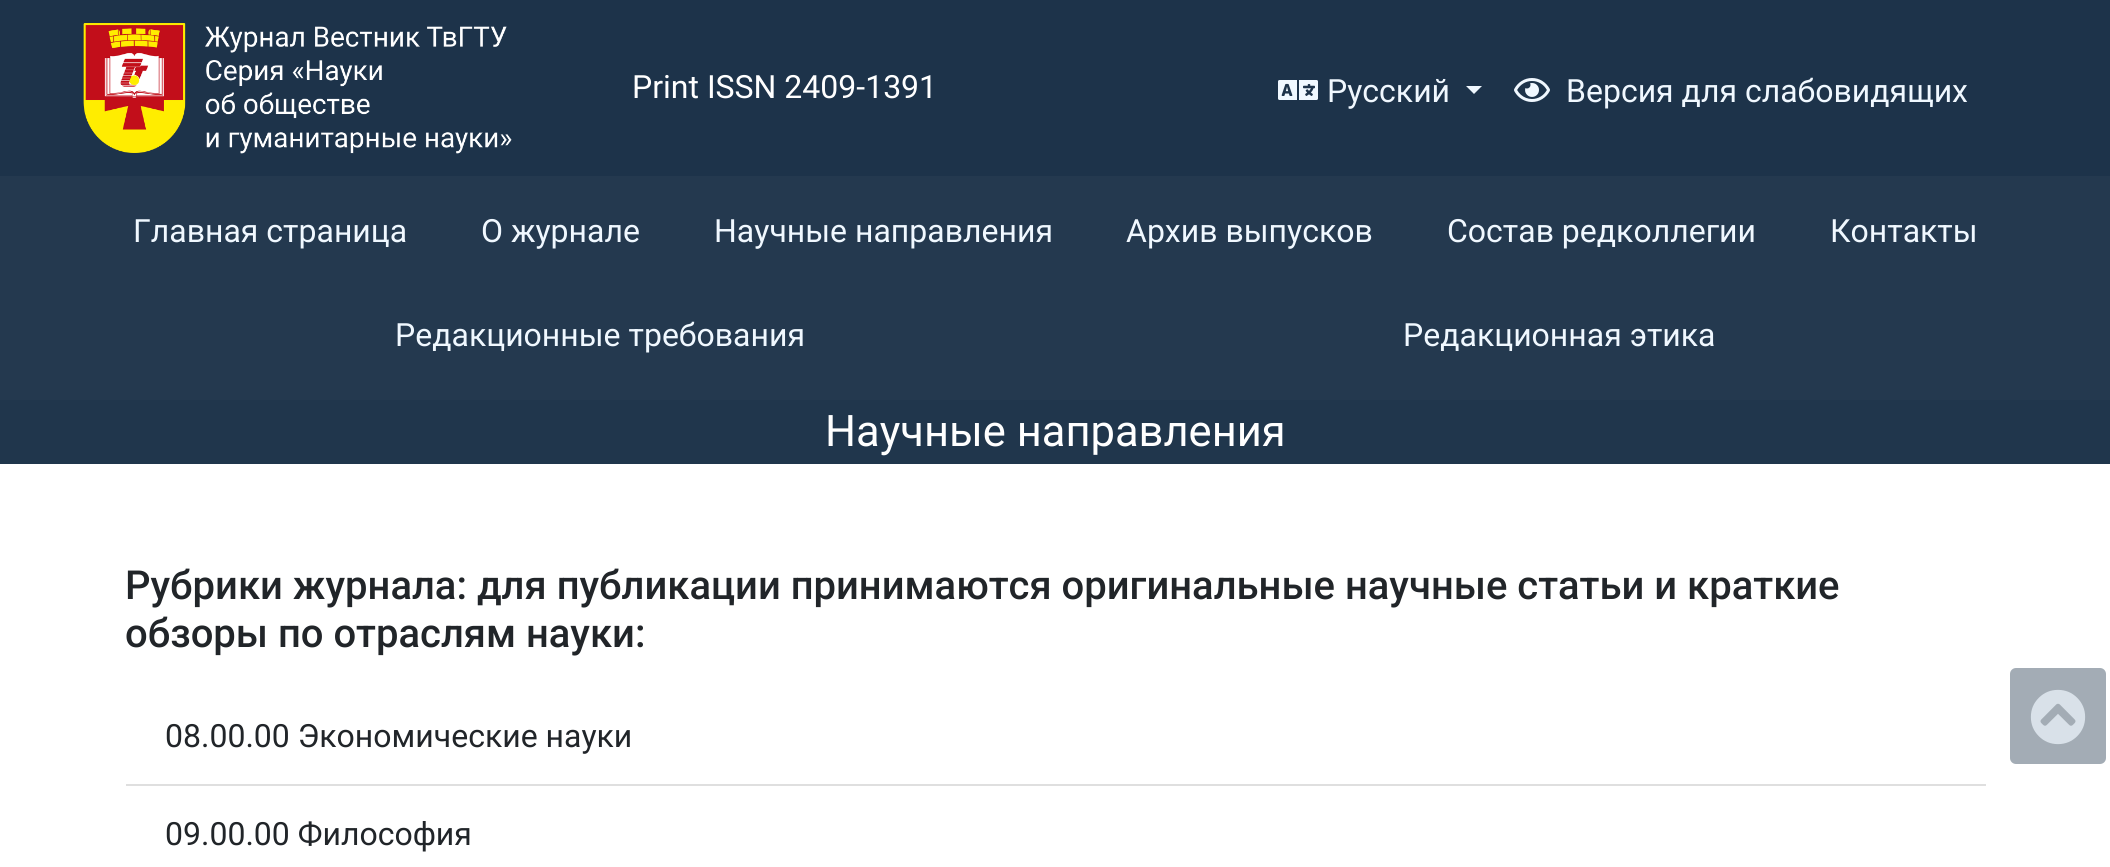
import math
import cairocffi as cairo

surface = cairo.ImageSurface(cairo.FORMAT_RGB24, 2110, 867)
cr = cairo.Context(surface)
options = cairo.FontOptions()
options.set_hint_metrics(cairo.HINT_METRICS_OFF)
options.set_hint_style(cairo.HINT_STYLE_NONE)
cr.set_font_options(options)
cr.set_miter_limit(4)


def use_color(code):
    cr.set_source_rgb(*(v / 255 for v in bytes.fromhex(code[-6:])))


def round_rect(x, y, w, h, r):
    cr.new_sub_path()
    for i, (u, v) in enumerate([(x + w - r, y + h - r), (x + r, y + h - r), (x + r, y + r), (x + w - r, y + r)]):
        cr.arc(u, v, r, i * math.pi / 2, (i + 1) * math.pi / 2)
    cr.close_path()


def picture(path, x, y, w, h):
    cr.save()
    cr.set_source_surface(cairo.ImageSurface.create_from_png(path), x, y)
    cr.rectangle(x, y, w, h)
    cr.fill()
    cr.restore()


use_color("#ffffff")
cr.paint()
use_color("#1d334a")
cr.rectangle(0, 0, 2110, 176)
cr.fill()
picture("img1.png", 83, 23, 429, 131)
cr.select_font_face("Roboto")
cr.set_font_size(32)
use_color("#ffffff")
cr.move_to(632, 98)
cr.show_text("Print ISSN 2409-1391")
picture("img2.png", 1278, 80, 40, 20)
use_color("#f0f8ff")
cr.move_to(1327, 102)
cr.show_text("Русский")
cr.new_path()
cr.move_to(1466, 86)
cr.line_to(1482, 86)
cr.line_to(1474, 94)
cr.close_path()
cr.fill()
picture("img3.png", 1514, 78, 36, 24)
cr.move_to(1566, 102)
cr.show_text("Версия для слабовидящих")
use_color("#24394f")
cr.rectangle(0, 176, 2110, 224)
cr.fill()
use_color("#f0f8ff")
cr.move_to(133, 242)
cr.show_text("Главная страница")
cr.move_to(481, 242)
cr.show_text("О журнале")
cr.move_to(714, 242)
cr.show_text("Научные направления")
cr.move_to(1126, 242)
cr.show_text("Архив выпусков")
cr.move_to(1447, 242)
cr.show_text("Состав редколлегии")
cr.move_to(1830, 242)
cr.show_text("Контакты")
cr.move_to(395, 346)
cr.show_text("Редакционные требования")
cr.move_to(1403, 346)
cr.show_text("Редакционная этика")
use_color("#20364c")
cr.rectangle(0, 400, 2110, 64)
cr.fill()
cr.set_font_size(43.5)
use_color("#ffffff")
cr.move_to(825, 446)
cr.show_text("Научные направления")
cr.select_font_face("Roboto Medium")
cr.set_font_size(40)
use_color("#212529")
cr.move_to(125, 599)
cr.show_text("Рубрики журнала: для публикации принимаются оригинальные научные статьи и краткие")
cr.move_to(125, 647)
cr.show_text("обзоры по отраслям науки:")
use_color("#dfdfdf")
cr.rectangle(126, 784, 1860, 2)
cr.fill()
cr.select_font_face("Roboto")
cr.set_font_size(32)
use_color("#212529")
cr.move_to(165, 747)
cr.show_text("08.00.00 Экономические науки")
cr.move_to(165, 845)
cr.show_text("09.00.00 Философия")
use_color("#a3acb5")
round_rect(2010, 668, 96, 96, 6)
cr.fill()
picture("img4.png", 2030, 689, 56, 56)
surface.write_to_png("result.png")
